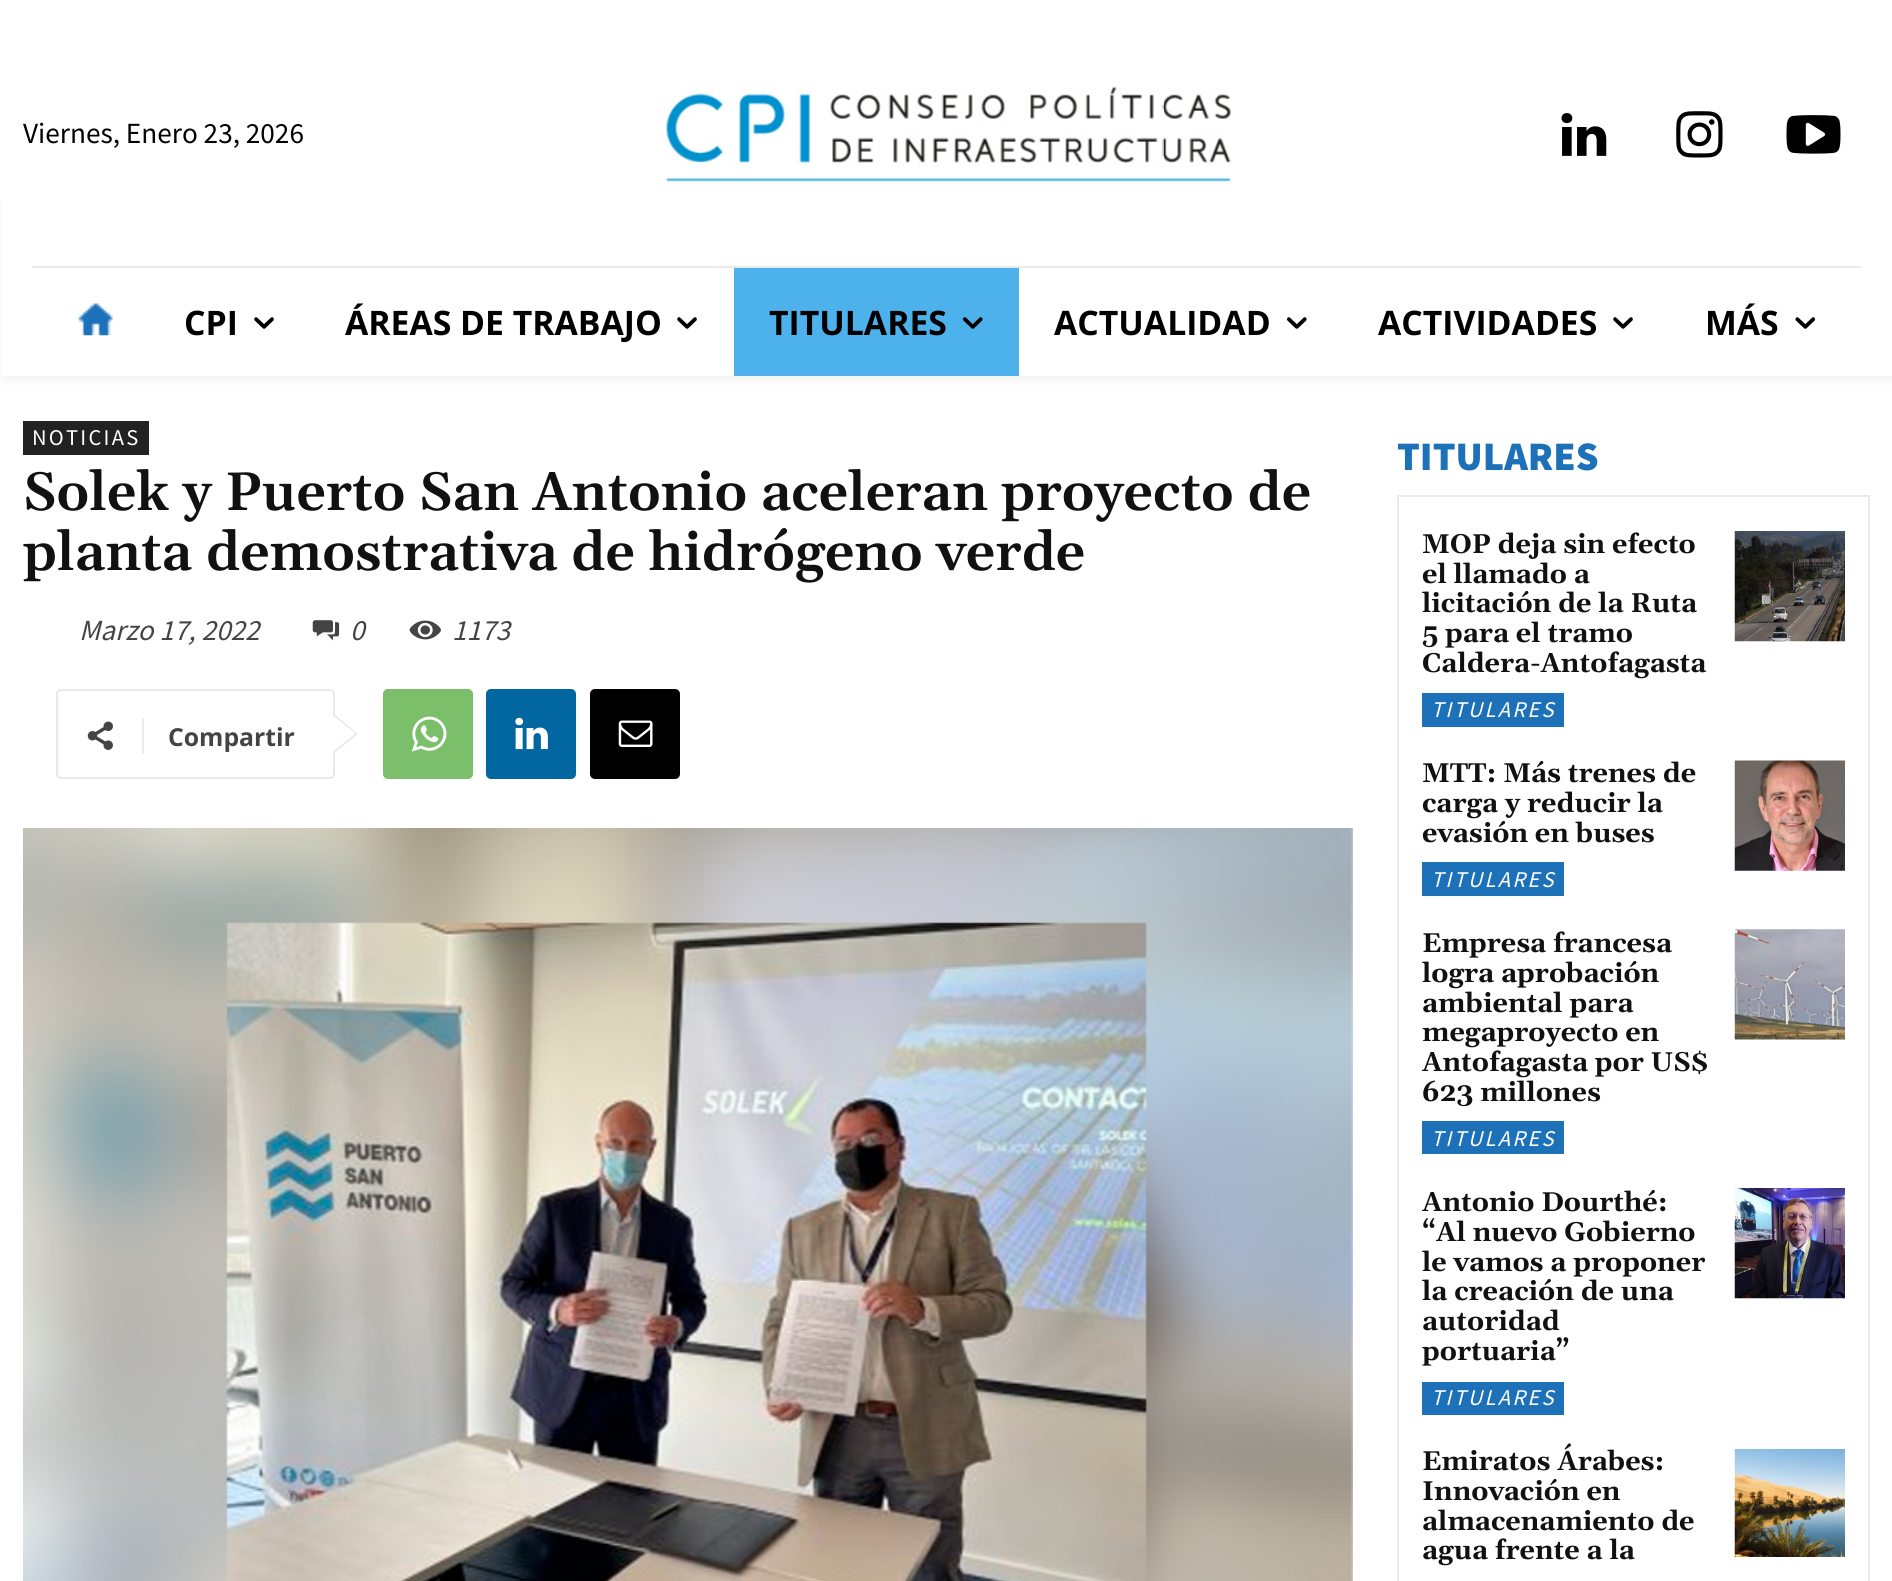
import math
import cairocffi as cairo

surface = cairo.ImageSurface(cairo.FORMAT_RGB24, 1892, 1581)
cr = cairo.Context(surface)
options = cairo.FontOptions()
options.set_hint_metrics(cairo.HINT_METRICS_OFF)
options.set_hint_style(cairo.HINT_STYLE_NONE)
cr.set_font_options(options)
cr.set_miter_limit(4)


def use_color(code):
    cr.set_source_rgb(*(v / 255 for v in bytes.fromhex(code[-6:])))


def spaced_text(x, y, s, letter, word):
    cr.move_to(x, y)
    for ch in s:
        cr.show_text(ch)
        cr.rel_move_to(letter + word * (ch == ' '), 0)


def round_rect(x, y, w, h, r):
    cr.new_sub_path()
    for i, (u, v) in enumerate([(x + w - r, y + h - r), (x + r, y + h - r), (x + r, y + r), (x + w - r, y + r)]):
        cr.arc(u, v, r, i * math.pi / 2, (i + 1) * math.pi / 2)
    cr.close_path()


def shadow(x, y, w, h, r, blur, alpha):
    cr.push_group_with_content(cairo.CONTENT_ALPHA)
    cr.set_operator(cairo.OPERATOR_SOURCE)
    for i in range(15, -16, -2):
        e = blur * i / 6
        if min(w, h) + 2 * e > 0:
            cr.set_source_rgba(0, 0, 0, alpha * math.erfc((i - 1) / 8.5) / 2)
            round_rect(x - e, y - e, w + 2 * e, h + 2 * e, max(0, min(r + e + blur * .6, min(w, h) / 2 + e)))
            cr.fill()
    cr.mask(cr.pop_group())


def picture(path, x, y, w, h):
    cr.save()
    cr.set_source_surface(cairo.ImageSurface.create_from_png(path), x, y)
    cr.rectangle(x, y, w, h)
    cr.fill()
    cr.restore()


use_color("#ffffff")
cr.paint()
cr.select_font_face("Source Sans Pro")
cr.set_font_size(29.25)
use_color("#000000")
cr.move_to(23, 143)
cr.show_text("Viernes, Enero 23, 2026")
picture("img1.png", 666, 86, 566, 96)
picture("img2.png", 1561, 113, 46, 43)
picture("img3.png", 1676, 111, 47, 47)
picture("img4.png", 1786, 115, 55, 39)
use_color("#eaeaea")
cr.rectangle(32, 266, 1829, 2)
cr.fill()
cr.save()
cr.set_fill_rule(cairo.FILL_RULE_EVEN_ODD)
cr.new_path()
cr.move_to(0, 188)
cr.line_to(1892, 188)
cr.line_to(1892, 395)
cr.line_to(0, 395)
cr.close_path()
cr.move_to(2, 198)
cr.line_to(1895, 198)
cr.line_to(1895, 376)
cr.line_to(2, 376)
cr.close_path()
cr.clip()
use_color("#000000")
shadow(2, 203, 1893, 177, 0, 4.5, 0.06)
cr.restore()
picture("img5.png", 78, 303, 35, 33)
cr.select_font_face("Open Sans", cairo.FONT_SLANT_NORMAL, cairo.FONT_WEIGHT_BOLD)
cr.set_font_size(33.75)
use_color("#000000")
cr.move_to(184, 335)
cr.show_text("CPI")
picture("img6.png", 254, 317, 20, 12)
cr.move_to(345, 335)
cr.show_text("ÁREAS DE TRABAJO")
picture("img6.png", 677, 317, 20, 12)
use_color("#4db2ec")
cr.rectangle(734, 268, 285, 108)
cr.fill()
use_color("#000000")
cr.move_to(769, 335)
cr.show_text("TITULARES")
picture("img7.png", 963, 317, 20, 12)
cr.move_to(1054, 335)
cr.show_text("ACTUALIDAD")
picture("img8.png", 1287, 317, 20, 12)
cr.move_to(1378, 335)
cr.show_text("ACTIVIDADES")
picture("img6.png", 1613, 317, 20, 12)
cr.move_to(1705, 335)
cr.show_text("MÁS")
picture("img9.png", 1795, 317, 21, 12)
use_color("#222222")
cr.rectangle(23, 421, 126, 34)
cr.fill()
cr.select_font_face("Source Sans Pro")
cr.set_font_size(22.5)
use_color("#ffffff")
spaced_text(32, 445, "NOTICIAS", 2.25, 0)
cr.select_font_face("Gelasio SemiBold")
cr.set_font_size(54)
use_color("#111111")
cr.move_to(23, 510)
cr.show_text("Solek y Puerto San Antonio aceleran proyecto de")
cr.move_to(23, 570)
cr.show_text("planta demostrativa de hidrógeno verde")
cr.select_font_face("Source Sans Pro", cairo.FONT_SLANT_ITALIC)
cr.set_font_size(29.25)
use_color("#444444")
cr.move_to(79, 640)
cr.show_text("Marzo 17, 2022")
picture("img10.png", 312, 620, 28, 21)
cr.move_to(350, 640)
cr.show_text("0")
picture("img11.png", 409, 620, 32, 20)
cr.move_to(452, 640)
cr.show_text("1173")
round_rect(57, 690, 277, 88, 4)
use_color("#e9e9e9")
cr.stroke()
cr.new_path()
cr.move_to(333, 754)
cr.line_to(333, 713)
cr.line_to(358, 734)
cr.close_path()
cr.fill()
picture("img12.png", 87, 721, 26, 29)
use_color("#ebebeb")
cr.rectangle(142, 718, 2, 36)
cr.fill()
cr.select_font_face("Open Sans", cairo.FONT_SLANT_NORMAL, cairo.FONT_WEIGHT_BOLD)
cr.set_font_size(24.75)
use_color("#444444")
cr.move_to(168, 746)
cr.show_text("Compartir")
use_color("#ffffff")
cr.new_path()
cr.move_to(333, 751.5)
cr.line_to(333, 715.5)
cr.line_to(355.5, 733.5)
cr.close_path()
cr.fill()
use_color("#7bbf6a")
round_rect(383, 689, 90, 90, 5)
cr.fill()
picture("img13.png", 411, 716, 36, 36)
use_color("#0266a0")
round_rect(486, 689, 90, 90, 5)
cr.fill()
picture("img14.png", 515, 717, 33, 33)
use_color("#000000")
round_rect(590, 689, 90, 90, 5)
cr.fill()
picture("img15.png", 618, 720, 35, 27)
picture("img16.png", 23, 828, 1330, 753)
cr.select_font_face("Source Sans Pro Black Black")
cr.set_font_size(40.5)
use_color("#1d71b8")
cr.move_to(1397, 470)
cr.show_text("TITULARES")
cr.rectangle(1398, 496, 471, 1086)
use_color("#eaeaea")
cr.stroke()
cr.select_font_face("Gelasio", cairo.FONT_SLANT_NORMAL, cairo.FONT_WEIGHT_BOLD)
cr.set_font_size(27)
use_color("#111111")
cr.move_to(1422, 553)
cr.show_text("MOP deja sin efecto")
cr.move_to(1422, 583)
cr.show_text("el llamado a")
cr.move_to(1422, 612)
cr.show_text("licitación de la Ruta")
cr.move_to(1422, 642)
cr.show_text("5 para el tramo")
cr.move_to(1422, 672)
cr.show_text("Caldera-Antofagasta")
use_color("#1d71b8")
cr.rectangle(1422, 693, 142, 34)
cr.fill()
cr.select_font_face("Source Sans Pro", cairo.FONT_SLANT_ITALIC)
cr.set_font_size(22.5)
use_color("#ffffff")
spaced_text(1431, 717, "TITULARES", 2.25, 0)
picture("img17.png", 1734, 531, 111, 111)
cr.select_font_face("Gelasio", cairo.FONT_SLANT_NORMAL, cairo.FONT_WEIGHT_BOLD)
cr.set_font_size(27)
use_color("#111111")
cr.move_to(1422, 782)
cr.show_text("MTT: Más trenes de")
cr.move_to(1422, 812)
cr.show_text("carga y reducir la")
cr.move_to(1422, 842)
cr.show_text("evasión en buses")
use_color("#1d71b8")
cr.rectangle(1422, 862, 142, 34)
cr.fill()
cr.select_font_face("Source Sans Pro", cairo.FONT_SLANT_ITALIC)
cr.set_font_size(22.5)
use_color("#ffffff")
spaced_text(1431, 887, "TITULARES", 2.25, 0)
picture("img18.png", 1734, 760, 111, 111)
cr.select_font_face("Gelasio", cairo.FONT_SLANT_NORMAL, cairo.FONT_WEIGHT_BOLD)
cr.set_font_size(27)
use_color("#111111")
cr.move_to(1422, 952)
cr.show_text("Empresa francesa")
cr.move_to(1422, 982)
cr.show_text("logra aprobación")
cr.move_to(1422, 1012)
cr.show_text("ambiental para")
cr.move_to(1422, 1041)
cr.show_text("megaproyecto en")
cr.move_to(1422, 1071)
cr.show_text("Antofagasta por US$")
cr.move_to(1422, 1101)
cr.show_text("623 millones")
use_color("#1d71b8")
cr.rectangle(1422, 1121, 142, 33)
cr.fill()
cr.select_font_face("Source Sans Pro", cairo.FONT_SLANT_ITALIC)
cr.set_font_size(22.5)
use_color("#ffffff")
spaced_text(1431, 1146, "TITULARES", 2.25, 0)
picture("img19.png", 1734, 929, 111, 111)
cr.select_font_face("Gelasio", cairo.FONT_SLANT_NORMAL, cairo.FONT_WEIGHT_BOLD)
cr.set_font_size(27)
use_color("#111111")
cr.move_to(1422, 1211)
cr.show_text("Antonio Dourthé:")
cr.move_to(1422, 1241)
cr.show_text("“Al nuevo Gobierno")
cr.move_to(1422, 1271)
cr.show_text("le vamos a proponer")
cr.move_to(1422, 1300)
cr.show_text("la creación de una")
cr.move_to(1422, 1330)
cr.show_text("autoridad")
cr.move_to(1422, 1360)
cr.show_text("portuaria”")
use_color("#1d71b8")
cr.rectangle(1422, 1382, 142, 33)
cr.fill()
cr.select_font_face("Source Sans Pro", cairo.FONT_SLANT_ITALIC)
cr.set_font_size(22.5)
use_color("#ffffff")
spaced_text(1431, 1405, "TITULARES", 2.25, 0)
picture("img20.png", 1734, 1188, 111, 111)
cr.select_font_face("Gelasio", cairo.FONT_SLANT_NORMAL, cairo.FONT_WEIGHT_BOLD)
cr.set_font_size(27)
use_color("#111111")
cr.move_to(1422, 1470)
cr.show_text("Emiratos Árabes:")
cr.move_to(1422, 1500)
cr.show_text("Innovación en")
cr.move_to(1422, 1530)
cr.show_text("almacenamiento de")
cr.move_to(1422, 1559)
cr.show_text("agua frente a la")
picture("img21.png", 1734, 1449, 111, 108)
surface.write_to_png("result.png")
